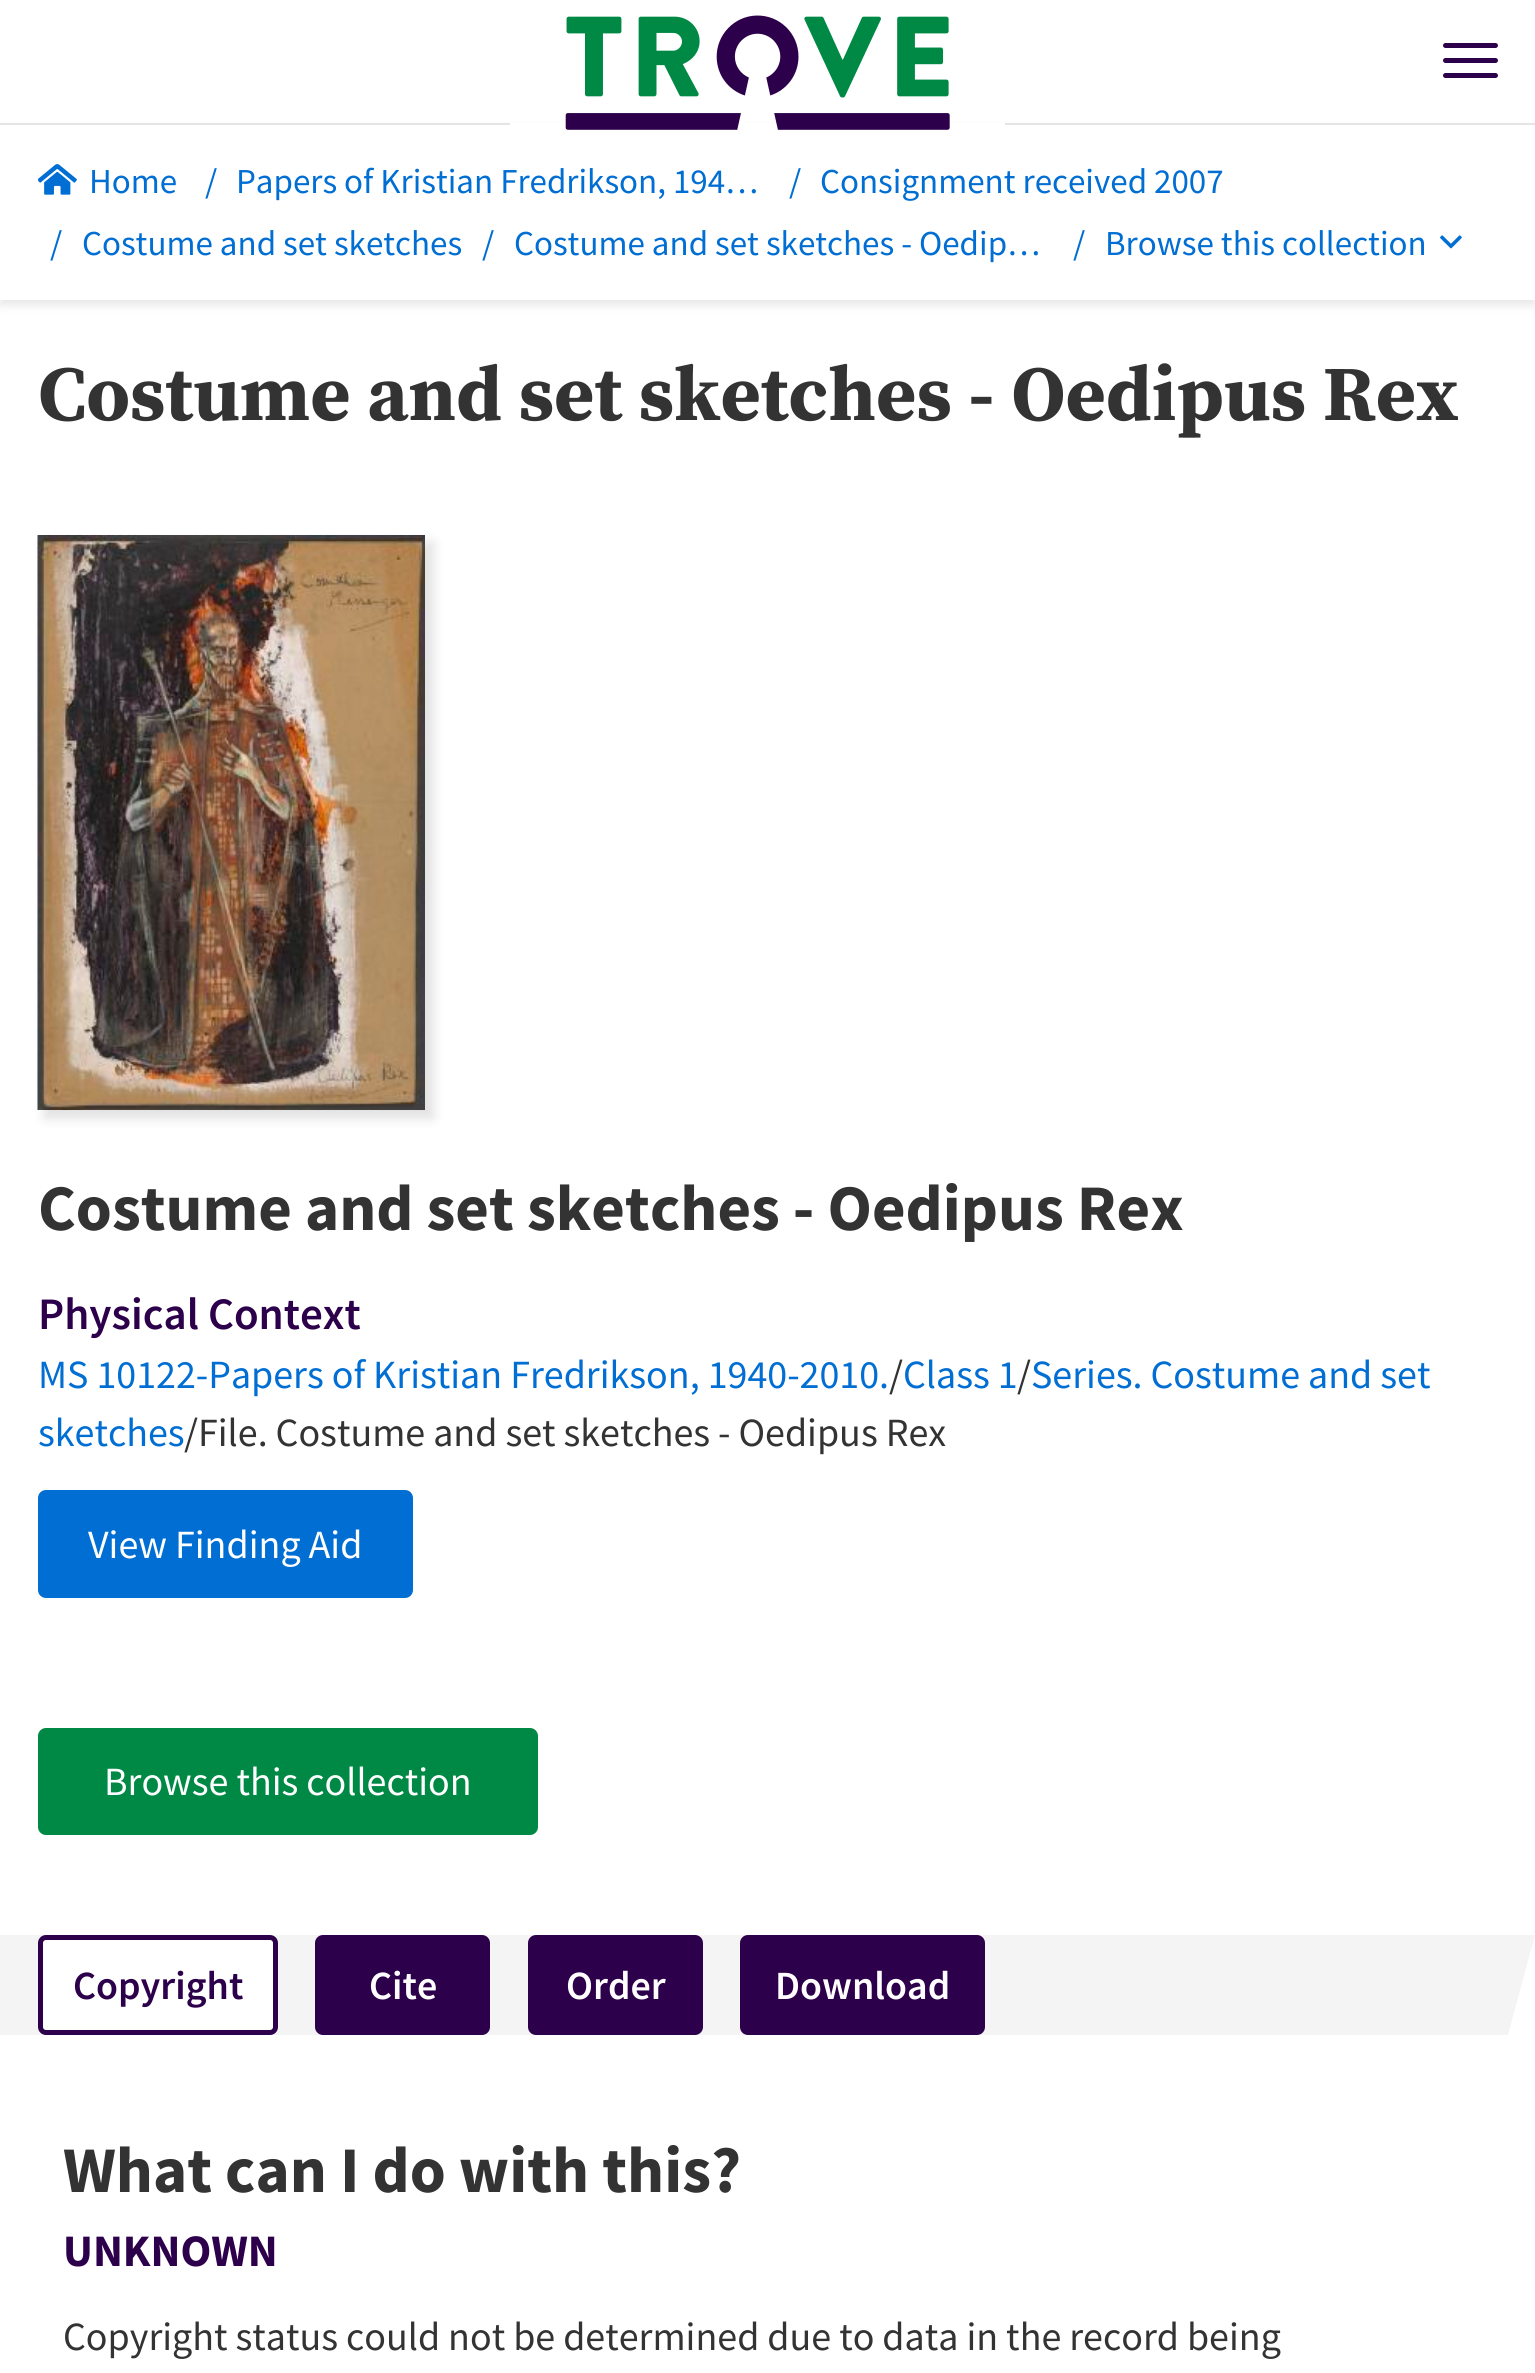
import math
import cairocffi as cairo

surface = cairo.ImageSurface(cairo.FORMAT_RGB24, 1535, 2373)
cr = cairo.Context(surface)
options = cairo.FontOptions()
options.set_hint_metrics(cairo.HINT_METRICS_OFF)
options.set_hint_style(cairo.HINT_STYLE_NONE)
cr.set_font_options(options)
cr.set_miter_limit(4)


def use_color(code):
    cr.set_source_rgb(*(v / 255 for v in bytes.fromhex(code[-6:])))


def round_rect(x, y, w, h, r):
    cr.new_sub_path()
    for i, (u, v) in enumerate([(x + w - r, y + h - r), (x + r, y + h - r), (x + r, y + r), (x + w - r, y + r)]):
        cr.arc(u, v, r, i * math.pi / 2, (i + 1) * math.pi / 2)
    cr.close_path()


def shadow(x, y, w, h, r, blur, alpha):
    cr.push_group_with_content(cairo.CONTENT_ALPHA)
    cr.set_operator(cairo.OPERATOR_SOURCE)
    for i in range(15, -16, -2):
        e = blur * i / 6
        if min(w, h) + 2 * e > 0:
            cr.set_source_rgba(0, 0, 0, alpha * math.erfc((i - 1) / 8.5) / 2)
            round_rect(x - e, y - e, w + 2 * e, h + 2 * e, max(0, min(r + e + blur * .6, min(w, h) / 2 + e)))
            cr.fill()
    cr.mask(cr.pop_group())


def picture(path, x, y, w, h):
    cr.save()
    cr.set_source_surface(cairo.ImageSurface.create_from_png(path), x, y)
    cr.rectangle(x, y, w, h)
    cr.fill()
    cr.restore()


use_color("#ffffff")
cr.paint()
use_color("#e7e7e7")
cr.rectangle(0, 123, 1535, 2)
cr.fill()
use_color("#000000")
shadow(0, 130, 1535, 175, 0, 5, 0.1)
use_color("#ffffff")
cr.rectangle(510, 123, 495, 2)
cr.fill()
cr.rectangle(0, 125, 1535, 175)
cr.fill()
picture("img1.png", 565, 15, 385, 115)
use_color("#2d004b")
round_rect(1443, 43, 55, 5, 2.5)
cr.fill()
round_rect(1443, 58, 55, 5, 2.5)
cr.fill()
round_rect(1443, 73, 55, 5, 2.5)
cr.fill()
picture("img2.png", 38, 164, 39, 31)
cr.select_font_face("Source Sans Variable")
cr.set_font_size(35)
use_color("#016ed3")
cr.move_to(89, 193)
cr.show_text("Home")
cr.move_to(205, 193)
cr.show_text("/")
cr.move_to(236, 193)
cr.show_text("Papers of Kristian Fredrikson, 194…")
cr.move_to(789, 193)
cr.show_text("/")
cr.move_to(820, 193)
cr.show_text("Consignment received 2007")
cr.move_to(50, 255)
cr.show_text("/")
cr.move_to(82, 255)
cr.show_text("Costume and set sketches")
cr.move_to(482, 255)
cr.show_text("/")
cr.move_to(514, 255)
cr.show_text("Costume and set sketches - Oedip…")
cr.move_to(1073, 255)
cr.show_text("/")
cr.move_to(1105, 255)
cr.show_text("Browse this collection")
picture("img3.png", 1440, 235, 22, 14)
cr.select_font_face("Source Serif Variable", cairo.FONT_SLANT_NORMAL, cairo.FONT_WEIGHT_BOLD)
cr.set_font_size(77.5)
use_color("#333333")
cr.move_to(38, 420)
cr.show_text("Costume and set sketches - Oedipus Rex")
use_color("#969696")
shadow(45, 543, 388, 575, 0, 6, 0.3)
picture("img4.png", 37, 535, 388, 575)
cr.select_font_face("Source Sans Variable", cairo.FONT_SLANT_NORMAL, cairo.FONT_WEIGHT_BOLD)
cr.set_font_size(65)
use_color("#333333")
cr.move_to(38, 1230)
cr.show_text("Costume and set sketches - Oedipus Rex")
cr.select_font_face("Source Sans Variable SemiBold")
cr.set_font_size(45)
use_color("#2d004b")
cr.move_to(38, 1329)
cr.show_text("Physical Context")
cr.select_font_face("Source Sans Variable")
cr.set_font_size(40)
use_color("#016ed3")
cr.move_to(38, 1388)
cr.show_text("MS 10122-Papers of Kristian Fredrikson, 1940-2010.")
use_color("#333333")
cr.move_to(889, 1388)
cr.show_text("/")
use_color("#016ed3")
cr.move_to(903, 1388)
cr.show_text("Class 1")
use_color("#333333")
cr.move_to(1017, 1388)
cr.show_text("/")
use_color("#016ed3")
cr.move_to(1031, 1388)
cr.show_text("Series. Costume and set")
cr.move_to(38, 1446)
cr.show_text("sketches")
use_color("#333333")
cr.move_to(184, 1446)
cr.show_text("/File. Costume and set sketches - Oedipus Rex")
use_color("#016ed3")
round_rect(40.5, 1492.5, 370, 103, 5.5)
cr.fill_preserve()
cr.set_line_width(5)
cr.stroke()
use_color("#ffffff")
cr.move_to(88, 1558)
cr.show_text("View Finding Aid")
use_color("#008944")
round_rect(40.5, 1730.5, 495, 102, 5.5)
cr.fill_preserve()
cr.stroke()
use_color("#ffffff")
cr.move_to(104, 1795)
cr.show_text("Browse this collection")
use_color("#f4f4f4")
cr.new_path()
cr.move_to(0, 1935)
cr.line_to(1535, 1935)
cr.line_to(1508, 2035)
cr.line_to(0, 2035)
cr.close_path()
cr.fill()
use_color("#ffffff")
round_rect(40.5, 1937.5, 235, 95, 5.5)
cr.fill_preserve()
use_color("#2d004b")
cr.stroke()
cr.select_font_face("Source Sans Variable SemiBold")
cr.move_to(73, 1999)
cr.show_text("Copyright")
round_rect(317.5, 1937.5, 170, 95, 5.5)
cr.fill_preserve()
cr.stroke()
use_color("#ffffff")
cr.move_to(369, 1999)
cr.show_text("Cite")
use_color("#2d004b")
round_rect(530.5, 1937.5, 170, 95, 5.5)
cr.fill_preserve()
cr.stroke()
use_color("#ffffff")
cr.move_to(566, 1999)
cr.show_text("Order")
use_color("#2d004b")
round_rect(742.5, 1937.5, 240, 95, 5.5)
cr.fill_preserve()
cr.stroke()
use_color("#ffffff")
cr.move_to(775, 1999)
cr.show_text("Download")
cr.select_font_face("Source Sans Variable", cairo.FONT_SLANT_NORMAL, cairo.FONT_WEIGHT_BOLD)
cr.set_font_size(65)
use_color("#333333")
cr.move_to(63, 2192)
cr.show_text("What can I do with this?")
cr.set_font_size(45)
use_color("#2d004b")
cr.move_to(63, 2266)
cr.show_text("UNKNOWN")
cr.select_font_face("Source Sans Variable")
cr.set_font_size(40)
use_color("#333333")
cr.move_to(63, 2350)
cr.show_text("Copyright status could not be determined due to data in the record being")
surface.write_to_png("result.png")
